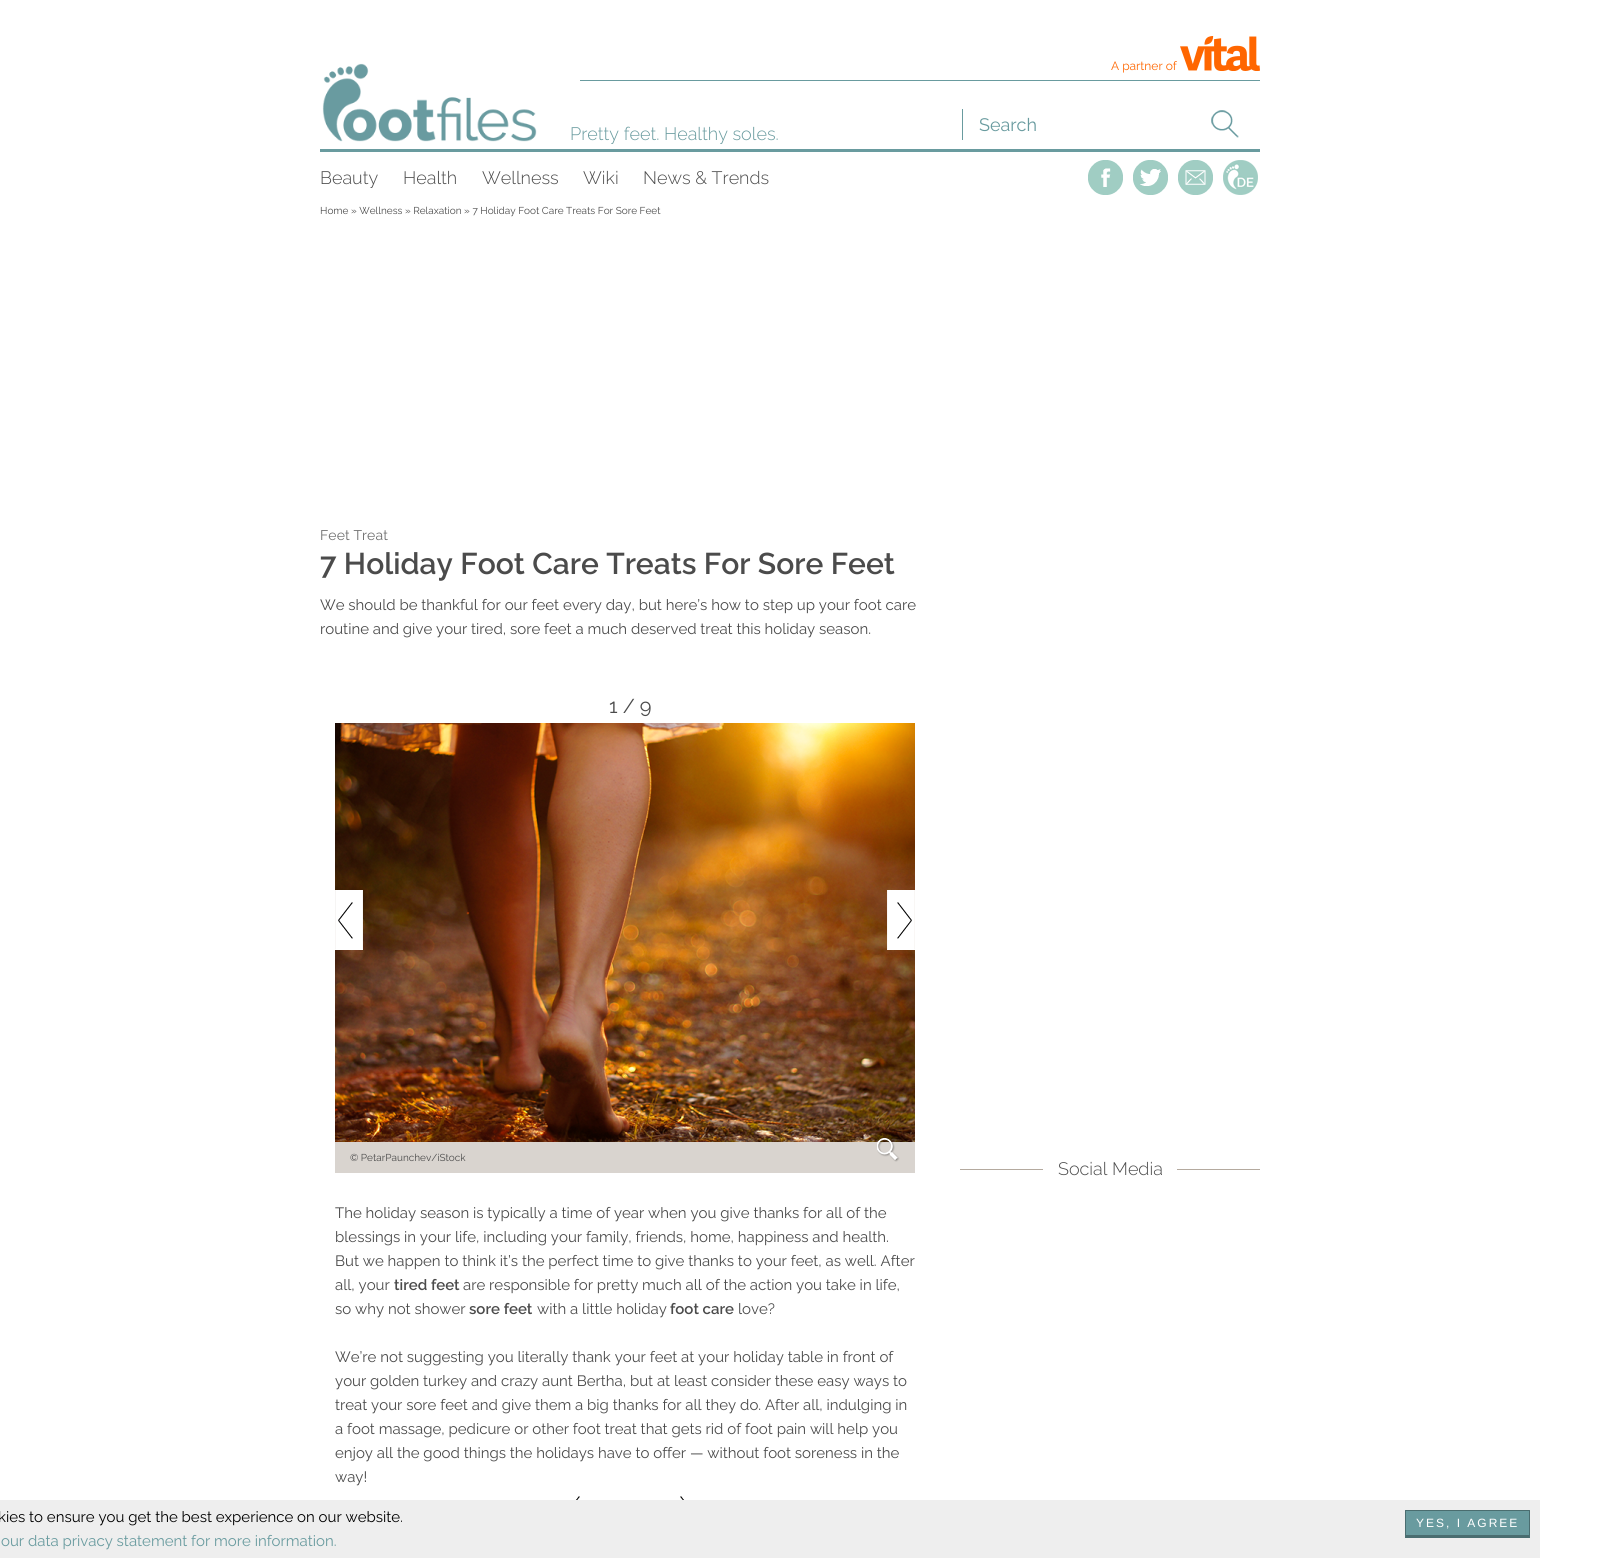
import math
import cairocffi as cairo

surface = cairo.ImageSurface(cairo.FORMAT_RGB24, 1620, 1558)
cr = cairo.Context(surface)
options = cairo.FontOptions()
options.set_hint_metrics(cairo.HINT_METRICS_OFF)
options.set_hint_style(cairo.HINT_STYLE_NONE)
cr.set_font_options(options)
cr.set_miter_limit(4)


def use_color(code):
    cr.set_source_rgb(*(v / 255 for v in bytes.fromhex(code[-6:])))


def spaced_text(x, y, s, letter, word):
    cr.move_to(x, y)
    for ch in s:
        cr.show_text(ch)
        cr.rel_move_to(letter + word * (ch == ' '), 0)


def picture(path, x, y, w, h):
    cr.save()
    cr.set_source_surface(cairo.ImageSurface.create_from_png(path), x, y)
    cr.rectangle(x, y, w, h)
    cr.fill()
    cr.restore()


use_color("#ffffff")
cr.paint()
use_color("#699b9f")
cr.rectangle(580, 80, 680, 1)
cr.fill()
cr.select_font_face("Raleway")
cr.set_font_size(12)
use_color("#ff6600")
cr.move_to(1111, 70)
cr.show_text("A partner of")
picture("img1.png", 1180, 36, 80, 35)
use_color("#699b9f")
cr.rectangle(962, 109, 1, 31)
cr.fill()
cr.set_font_size(18)
cr.move_to(979, 131)
cr.show_text("Search")
picture("img2.png", 1211, 110, 28, 28)
picture("img3.png", 322, 63, 215, 79)
cr.select_font_face("Raleway Light")
cr.move_to(570, 140)
cr.show_text("Pretty feet. Healthy soles.")
cr.rectangle(320, 149, 940, 3)
cr.fill()
use_color("#4b4b4b")
cr.move_to(320, 184)
cr.show_text("Beauty")
cr.move_to(403, 184)
cr.show_text("Health")
cr.move_to(482, 184)
cr.show_text("Wellness")
cr.move_to(583, 184)
cr.show_text("Wiki")
cr.move_to(643, 184)
cr.show_text("News & Trends")
picture("img4.png", 1088, 160, 35, 35)
picture("img5.png", 1133, 160, 35, 35)
picture("img6.png", 1178, 160, 35, 35)
picture("img7.png", 1223, 160, 35, 35)
cr.select_font_face("Raleway")
cr.set_font_size(10)
cr.move_to(320, 214)
cr.show_text("Home » Wellness » Relaxation » 7 Holiday Foot Care Treats For Sore Feet")
cr.set_font_size(14)
use_color("#6f6f6f")
spaced_text(320, 540, "Feet Treat", 0.1, 0)
cr.select_font_face("Raleway SemiBold")
cr.set_font_size(30)
use_color("#4b4b4b")
cr.move_to(320, 574)
cr.show_text("7 Holiday Foot Care Treats For Sore Feet")
cr.select_font_face("Raleway")
cr.set_font_size(15)
cr.move_to(320, 610)
cr.show_text("We should be thankful for our feet every day, but here’s how to step up your foot care")
cr.move_to(320, 634)
cr.show_text("routine and give your tired, sore feet a much deserved treat this holiday season.")
cr.set_font_size(20)
cr.move_to(609, 713)
cr.show_text("1 / 9")
picture("img10.png", 335, 723, 580, 419)
picture("img8.png", 335, 890, 28, 60)
picture("img9.png", 887, 890, 28, 60)
use_color("#d9d4cf")
cr.rectangle(335, 1142, 580, 31)
cr.fill()
cr.set_font_size(10)
use_color("#4b4b4b")
cr.move_to(350, 1161)
cr.show_text("© PetarPaunchev/iStock")
picture("img11.png", 877, 1138, 23, 24)
cr.set_font_size(15)
cr.move_to(335, 1218)
cr.show_text("The holiday season is typically a time of year when you give thanks for all of the")
cr.move_to(335, 1242)
cr.show_text("blessings in your life, including your family, friends, home, happiness and health.")
cr.move_to(335, 1266)
cr.show_text("But we happen to think it’s the perfect time to give thanks to your feet, as well. After")
cr.move_to(335, 1290)
cr.show_text("all, your")
cr.select_font_face("Raleway SemiBold")
cr.move_to(394, 1290)
cr.show_text("tired feet")
cr.select_font_face("Raleway")
cr.move_to(463, 1290)
cr.show_text("are responsible for pretty much all of the action you take in life,")
cr.move_to(335, 1314)
cr.show_text("so why not shower")
cr.select_font_face("Raleway SemiBold")
cr.move_to(469, 1314)
cr.show_text("sore feet")
cr.select_font_face("Raleway")
cr.move_to(537, 1314)
cr.show_text("with a little holiday")
cr.select_font_face("Raleway SemiBold")
cr.move_to(670, 1314)
cr.show_text("foot care")
cr.select_font_face("Raleway")
cr.move_to(738, 1314)
cr.show_text("love?")
cr.move_to(335, 1362)
cr.show_text("We’re not suggesting you literally thank your feet at your holiday table in front of")
cr.move_to(335, 1386)
cr.show_text("your golden turkey and crazy aunt Bertha, but at least consider these easy ways to")
cr.move_to(335, 1410)
cr.show_text("treat your sore feet and give them a big thanks for all they do. After all, indulging in")
cr.move_to(335, 1434)
cr.show_text("a foot massage, pedicure or other foot treat that gets rid of foot pain will help you")
cr.move_to(335, 1458)
cr.show_text("enjoy all the good things the holidays have to offer — without foot soreness in the")
cr.move_to(335, 1482)
cr.show_text("way!")
picture("img12.png", 565, 1496, 15, 4)
picture("img13.png", 680, 1496, 15, 4)
use_color("#b4aa9f")
cr.rectangle(960, 1169, 300, 1)
cr.fill()
use_color("#ffffff")
cr.rectangle(1043, 1169, 134, 1)
cr.fill()
cr.select_font_face("Raleway Light")
cr.set_font_size(18)
use_color("#4b4b4b")
cr.move_to(1058, 1175)
cr.show_text("Social Media")
use_color("#eeeeee")
cr.rectangle(0, 1500, 1540, 58)
cr.fill()
cr.select_font_face("Raleway")
cr.set_font_size(15)
use_color("#000000")
cr.move_to(-2, 1522)
cr.show_text("kies to ensure you get the best experience on our website.")
use_color("#699b9f")
cr.move_to(1, 1546)
cr.show_text("our data privacy statement for more information.")
cr.rectangle(1405, 1510, 125, 28)
cr.fill()
use_color("#4a6d6f")
cr.new_path()
cr.move_to(1405, 1510)
cr.line_to(1530, 1510)
cr.line_to(1529, 1511)
cr.line_to(1406, 1511)
cr.close_path()
cr.fill()
cr.set_source_rgba(0, 0, 0, 0.3)
cr.new_path()
cr.move_to(1530, 1510)
cr.line_to(1530, 1538)
cr.line_to(1529, 1535)
cr.line_to(1529, 1511)
cr.close_path()
cr.fill()
cr.new_path()
cr.move_to(1530, 1538)
cr.line_to(1405, 1538)
cr.line_to(1406, 1535)
cr.line_to(1529, 1535)
cr.close_path()
cr.fill()
cr.new_path()
cr.move_to(1405, 1538)
cr.line_to(1405, 1510)
cr.line_to(1406, 1511)
cr.line_to(1406, 1535)
cr.close_path()
cr.fill()
cr.select_font_face("Liberation Sans")
cr.set_font_size(12)
use_color("#ffffff")
spaced_text(1416, 1527, "YES, I AGREE", 2, 0)
surface.write_to_png("result.png")
